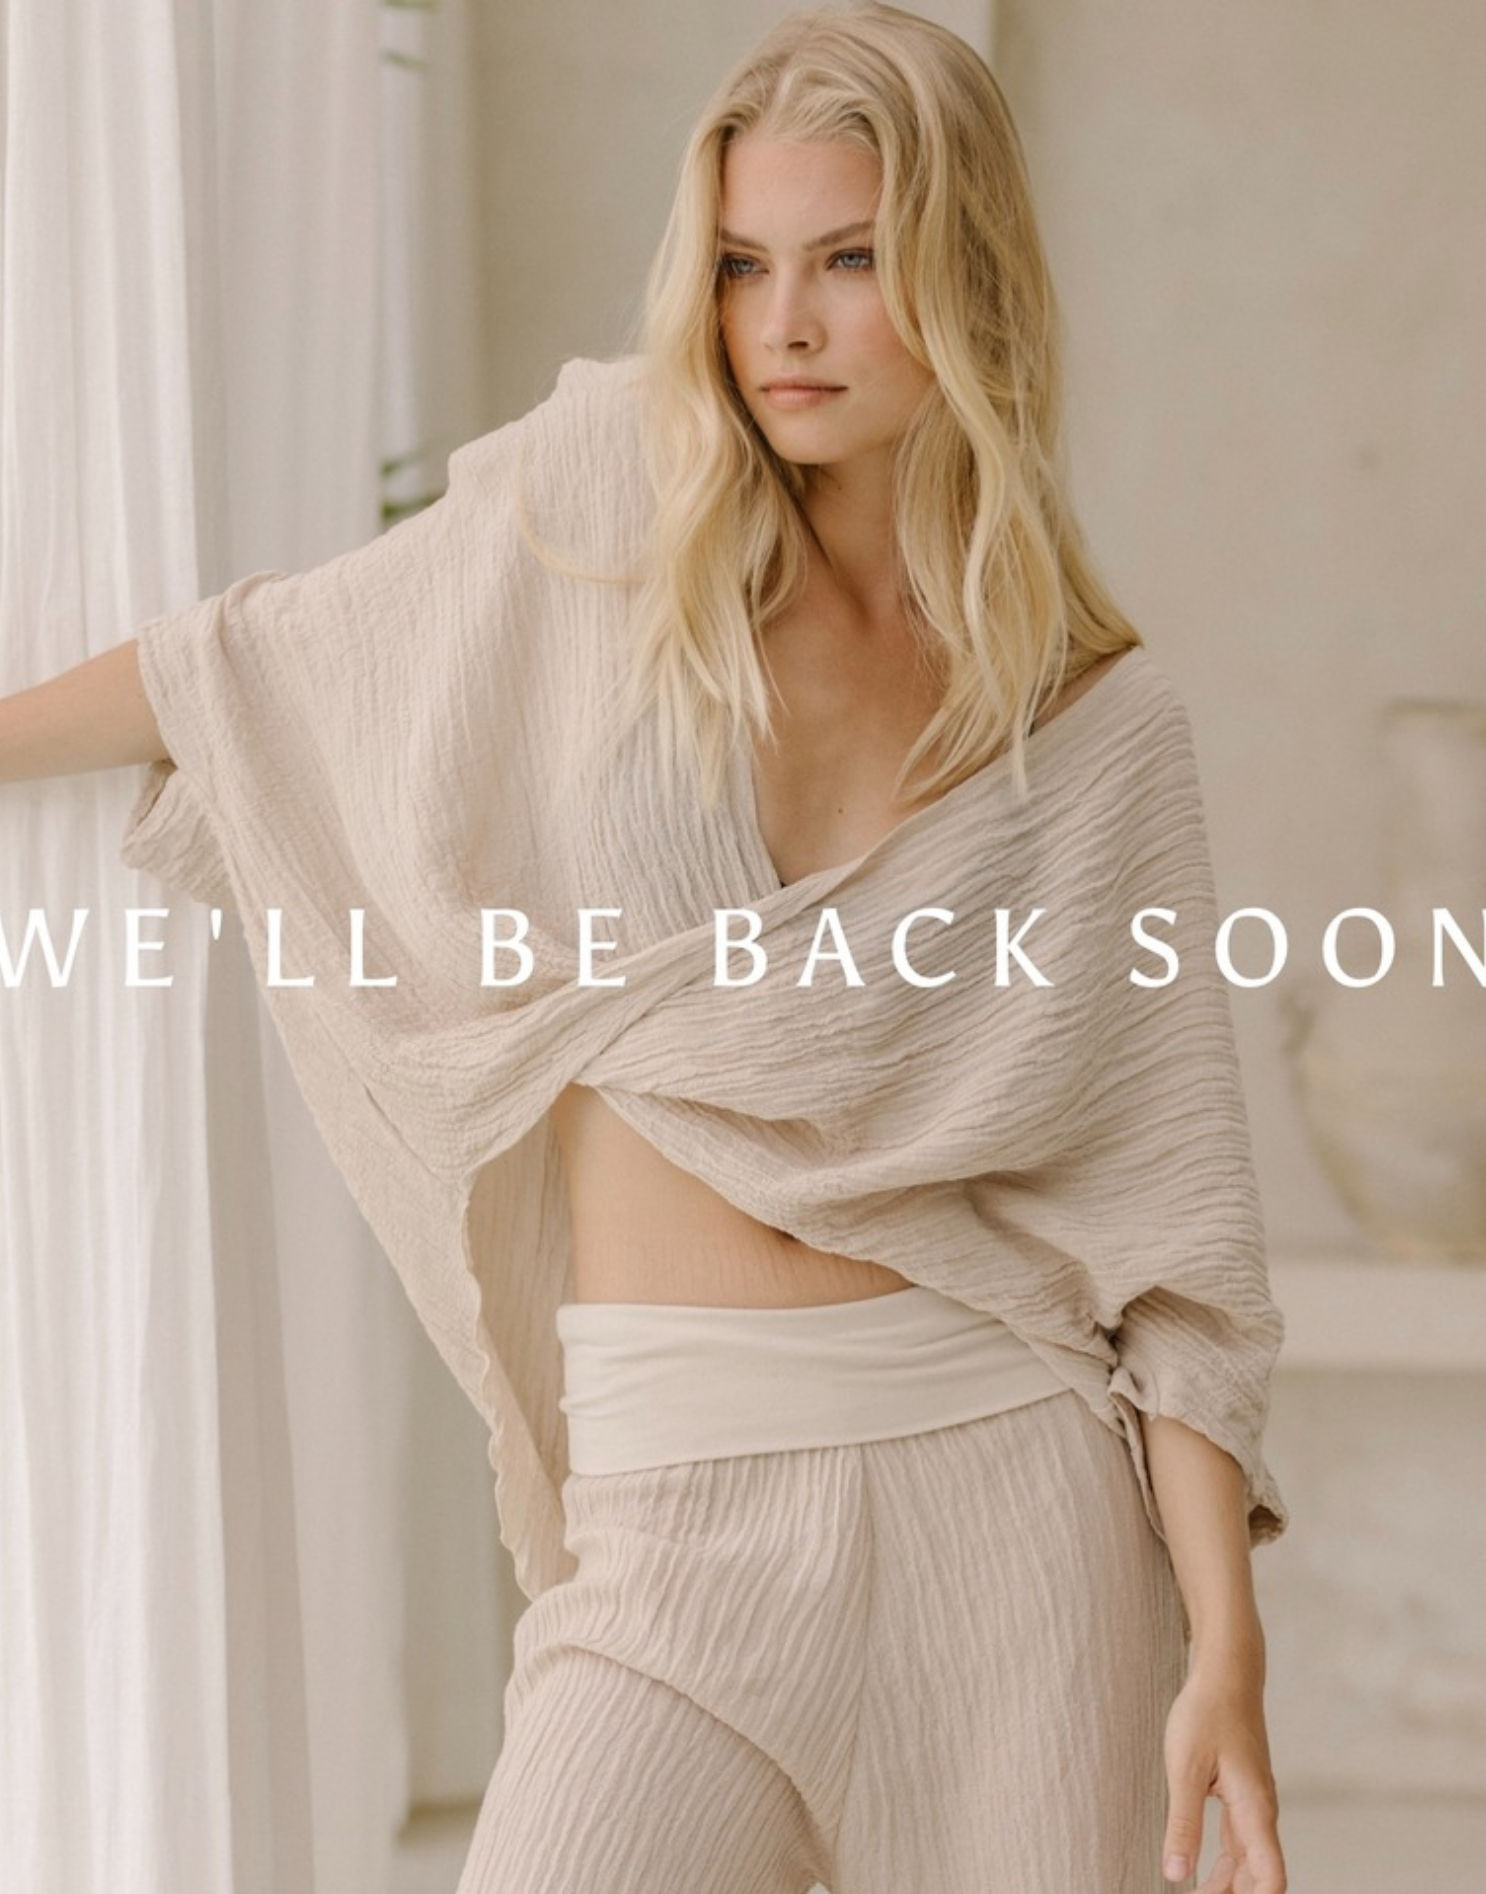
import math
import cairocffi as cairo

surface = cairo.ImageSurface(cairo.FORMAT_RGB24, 1486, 1894)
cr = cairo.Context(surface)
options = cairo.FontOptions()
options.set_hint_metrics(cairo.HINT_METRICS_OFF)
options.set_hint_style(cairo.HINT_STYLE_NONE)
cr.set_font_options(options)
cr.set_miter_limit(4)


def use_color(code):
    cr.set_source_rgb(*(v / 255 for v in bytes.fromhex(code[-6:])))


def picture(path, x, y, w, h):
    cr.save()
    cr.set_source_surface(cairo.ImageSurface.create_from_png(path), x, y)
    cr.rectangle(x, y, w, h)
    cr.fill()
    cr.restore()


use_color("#ffffff")
cr.paint()
picture("img1.png", 0, 0, 1486, 1894)
surface.write_to_png("result.png")
